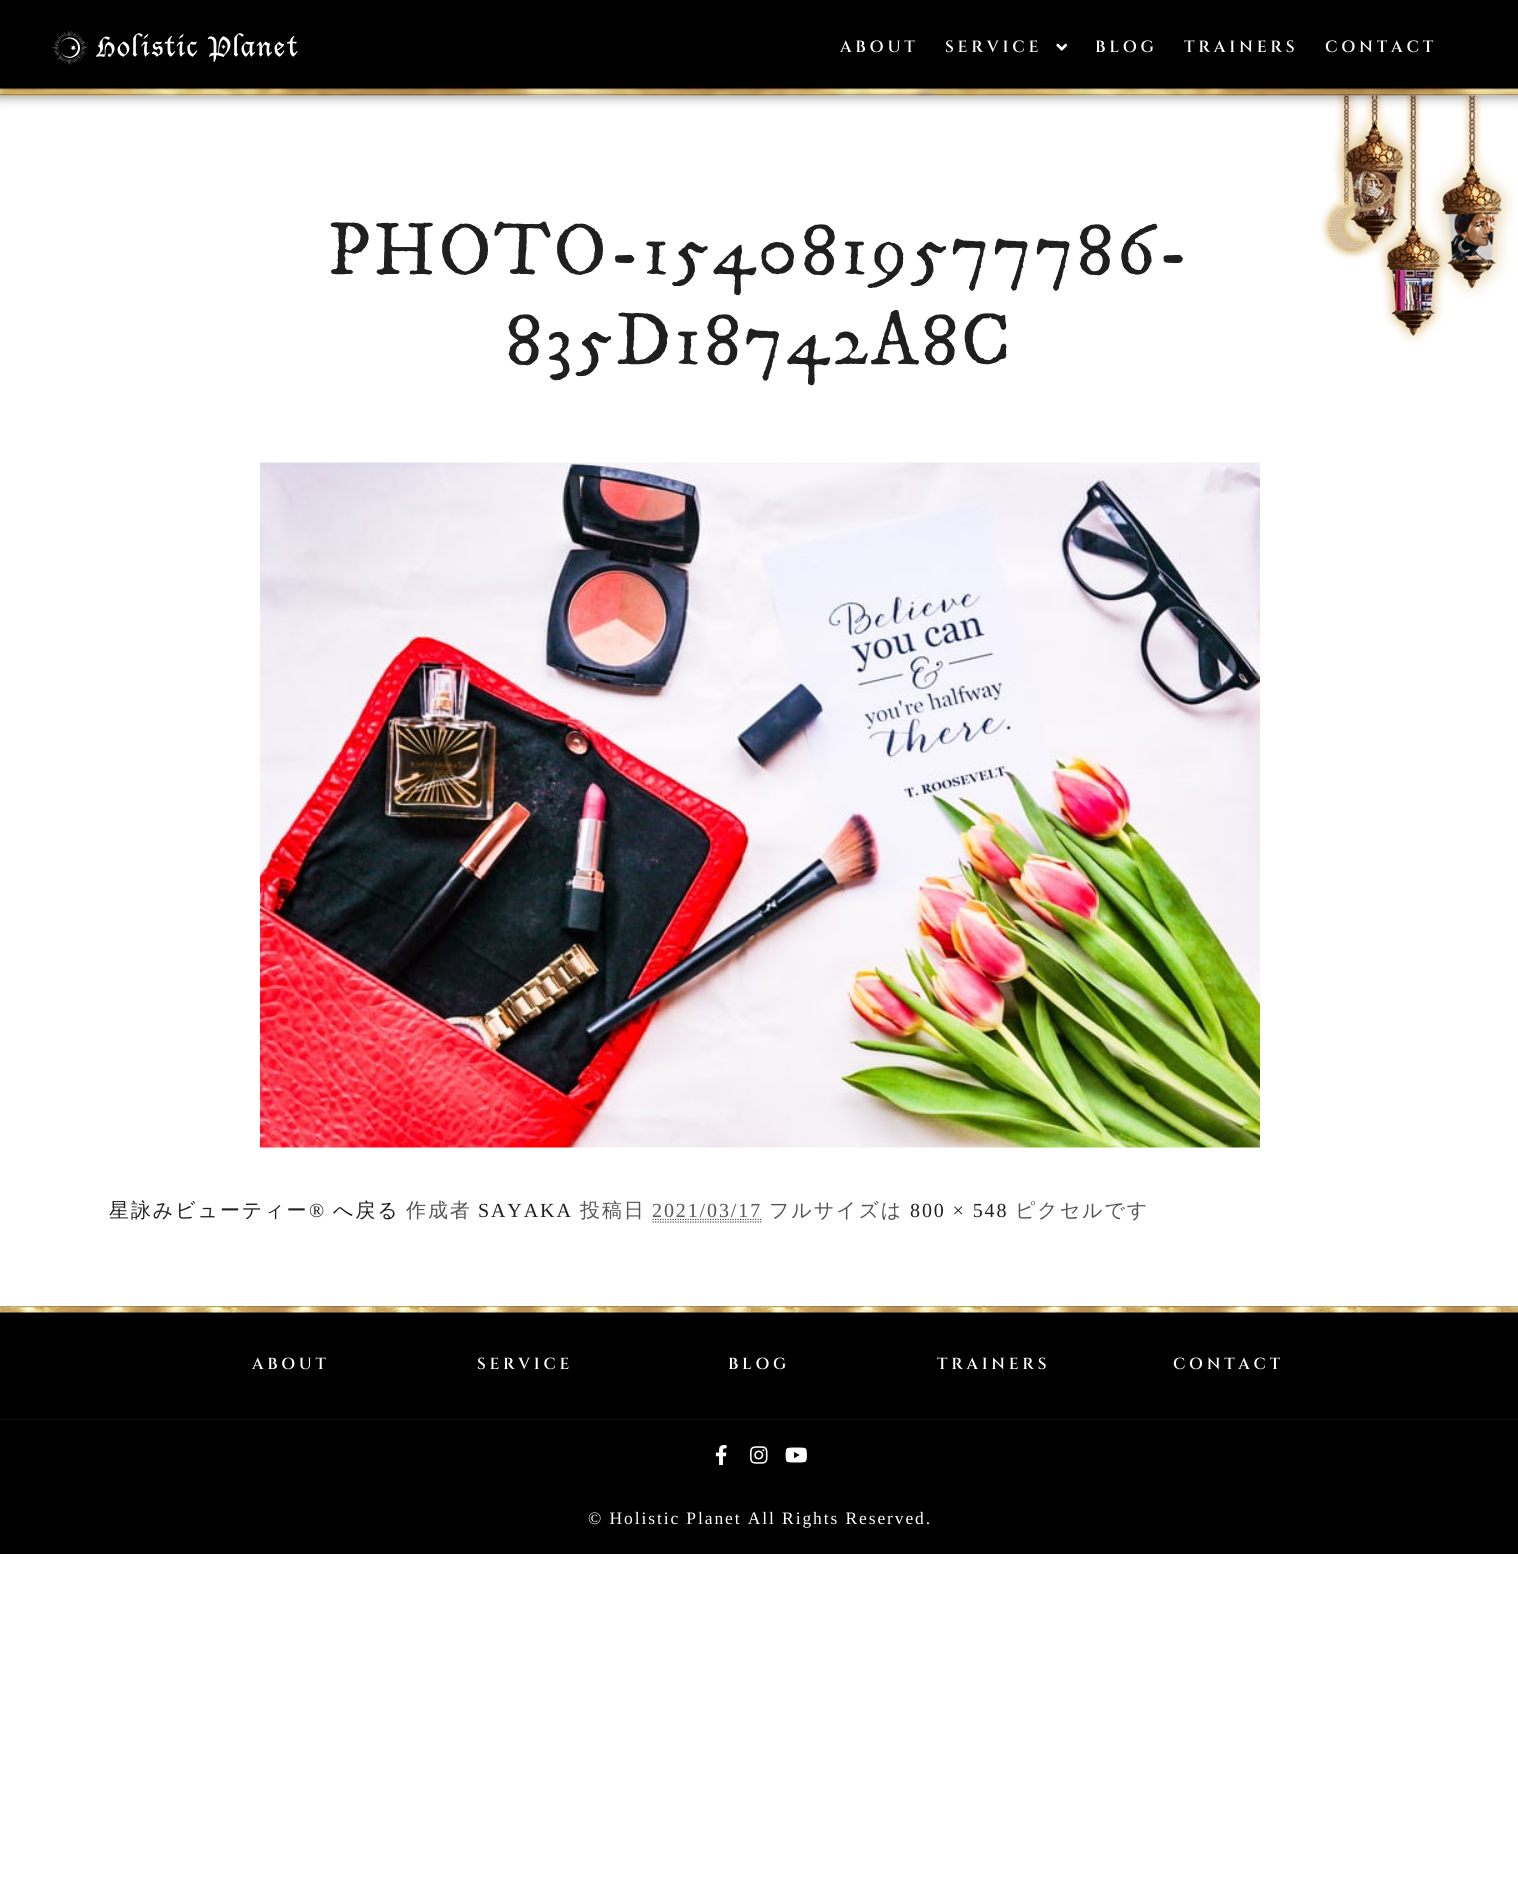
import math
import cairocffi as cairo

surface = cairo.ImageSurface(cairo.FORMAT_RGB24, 1518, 1898)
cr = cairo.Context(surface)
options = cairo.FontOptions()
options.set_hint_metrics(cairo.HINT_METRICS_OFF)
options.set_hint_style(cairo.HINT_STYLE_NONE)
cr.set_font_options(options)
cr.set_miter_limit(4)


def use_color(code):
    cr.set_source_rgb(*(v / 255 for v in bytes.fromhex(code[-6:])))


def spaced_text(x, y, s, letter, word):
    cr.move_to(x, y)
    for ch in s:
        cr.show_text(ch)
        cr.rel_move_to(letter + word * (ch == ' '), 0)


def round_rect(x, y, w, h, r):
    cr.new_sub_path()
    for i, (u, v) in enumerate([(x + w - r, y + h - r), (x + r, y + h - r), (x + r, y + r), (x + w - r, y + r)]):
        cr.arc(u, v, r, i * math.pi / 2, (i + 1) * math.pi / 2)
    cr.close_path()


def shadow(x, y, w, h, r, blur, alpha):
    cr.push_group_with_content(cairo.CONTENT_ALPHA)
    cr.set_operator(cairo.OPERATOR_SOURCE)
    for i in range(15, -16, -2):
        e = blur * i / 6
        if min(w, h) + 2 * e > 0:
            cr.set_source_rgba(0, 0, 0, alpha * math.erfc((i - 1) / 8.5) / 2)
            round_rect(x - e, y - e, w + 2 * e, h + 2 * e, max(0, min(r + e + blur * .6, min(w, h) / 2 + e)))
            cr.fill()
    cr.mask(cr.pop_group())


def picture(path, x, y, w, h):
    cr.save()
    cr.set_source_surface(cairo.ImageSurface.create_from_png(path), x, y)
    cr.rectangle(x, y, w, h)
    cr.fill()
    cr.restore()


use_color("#ffffff")
cr.paint()
picture("img4.png", 1320, 95, 60, 165)
picture("img6.png", 1377, 95, 73, 249)
picture("img5.png", 1331, 95, 86, 160)
picture("img7.png", 1429, 95, 86, 204)
use_color("#000000")
shadow(0, 0, 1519, 95, 0, 7.5, 0.09)
use_color("#000000")
cr.rectangle(0, 0, 1518, 95)
cr.fill()
picture("img1.png", 52, 30, 246, 35)
cr.select_font_face("Cinzel SemiBold")
cr.set_font_size(16.25)
use_color("#ffffff")
spaced_text(840, 52, "ABOUT", 3.75, 0)
spaced_text(945, 52, "SERVICE", 3.75, 0)
picture("img2.png", 1056, 43, 12, 8)
spaced_text(1095, 52, "BLOG", 3.75, 0)
spaced_text(1184, 52, "TRAINERS", 3.75, 0)
spaced_text(1325, 52, "CONTACT", 3.75, 0)
use_color("#000000")
shadow(0, 89, 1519, 6, 0, 6, 0.5)
picture("img3.png", 0, 88, 1518, 8)
cr.select_font_face("IM FELL DW Pica")
cr.set_font_size(75)
use_color("#1f1f1f")
spaced_text(327, 274, "PHOTO-1540819577786-", 2.5, 0)
spaced_text(505, 364, "835D18742A8C", 2.5, 0)
picture("img8.png", 260, 462, 1000, 686)
cr.select_font_face("WenQuanYi Zen Hei Medium")
cr.set_font_size(20)
spaced_text(109, 1217, "星詠みビューティー", 1.9, 0)
cr.select_font_face("Liberation Serif")
spaced_text(309, 1217, "®", 1.9, 0)
cr.select_font_face("WenQuanYi Zen Hei Medium")
spaced_text(333, 1217, "へ戻る", 1.9, 0)
use_color("#555555")
spaced_text(406, 1217, "作成者", 1.9, 0)
cr.select_font_face("Liberation Serif")
use_color("#1f1f1f")
spaced_text(478, 1217, "SAYAKA", 1.9, 0)
cr.select_font_face("WenQuanYi Zen Hei Medium")
use_color("#555555")
spaced_text(580, 1217, "投稿日", 1.9, 0)
cr.select_font_face("Liberation Serif")
spaced_text(652, 1217, "2021/03/17", 1.9, 0)
cr.new_path()
cr.move_to(652.5, 1222)
cr.line_to(762.5, 1222)
cr.set_line_width(1.2)
cr.set_dash([1.25, 1.25])
cr.stroke()
cr.new_path()
cr.move_to(652.5, 1219.5)
cr.line_to(762.5, 1219.5)
cr.stroke()
cr.select_font_face("WenQuanYi Zen Hei Medium")
spaced_text(769, 1217, "フルサイズは", 1.9, 0)
cr.select_font_face("Liberation Serif")
use_color("#1f1f1f")
spaced_text(910, 1217, "800 × 548", 1.9, 0)
cr.select_font_face("WenQuanYi Zen Hei Medium")
use_color("#555555")
spaced_text(1015, 1217, "ピクセルです", 1.9, 0)
use_color("#000000")
cr.rectangle(0, 1306, 1518, 248)
cr.fill()
picture("img9.png", 0, 1306, 1518, 7)
cr.select_font_face("Cinzel SemiBold")
cr.set_font_size(16)
use_color("#ffffff")
spaced_text(252, 1369, "ABOUT", 3.75, 0)
spaced_text(477, 1369, "SERVICE", 3.75, 0)
spaced_text(728, 1369, "BLOG", 3.75, 0)
spaced_text(937, 1369, "TRAINERS", 3.75, 0)
spaced_text(1173, 1369, "CONTACT", 3.75, 0)
use_color("#0e0e0e")
cr.rectangle(0, 1419, 1518, 1)
cr.fill()
picture("img10.png", 715, 1445, 12, 20)
picture("img11.png", 750, 1446, 18, 18)
picture("img12.png", 785, 1447, 22, 16)
cr.select_font_face("Liberation Serif")
cr.set_font_size(17.5)
use_color("#ffffff")
spaced_text(588, 1524, "© Holistic Planet All Rights Reserved.", 1.9, 0)
surface.write_to_png("result.png")
